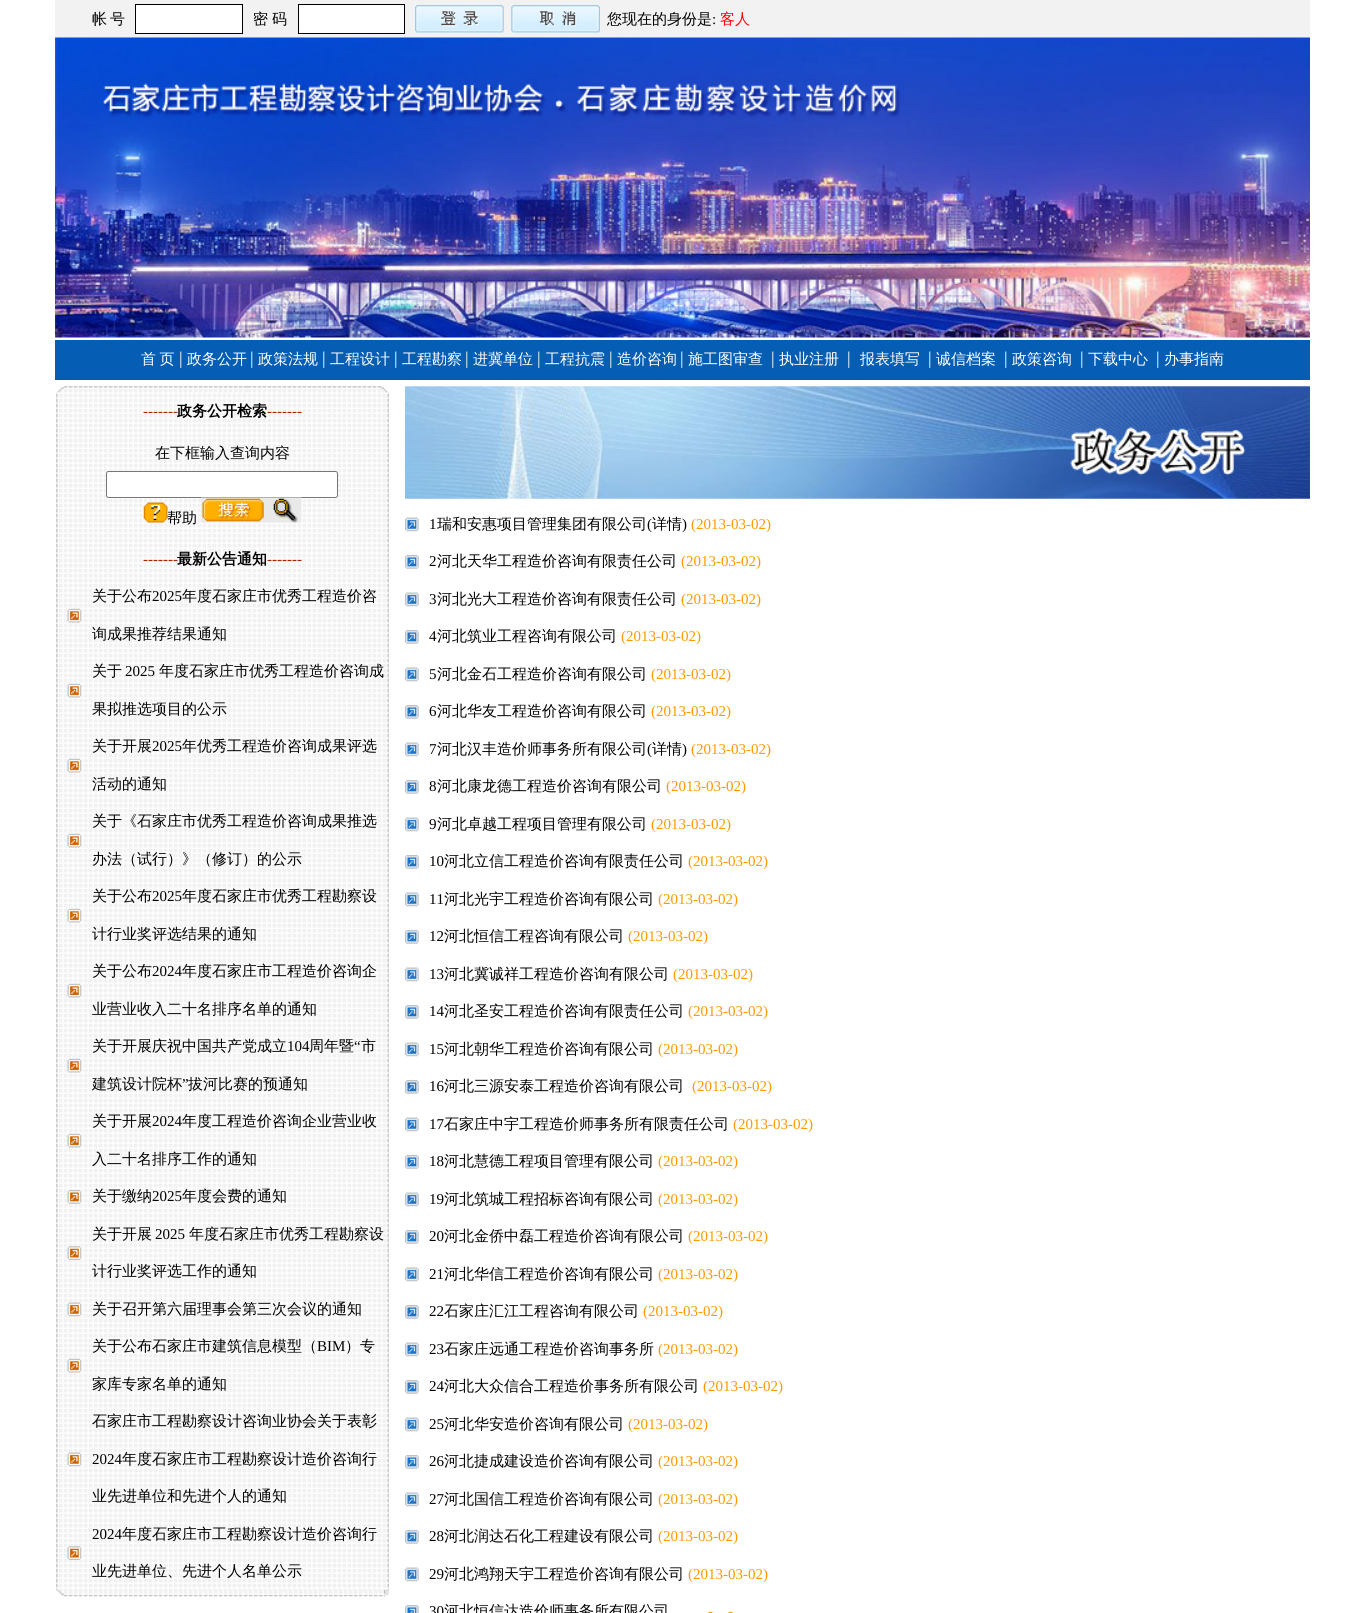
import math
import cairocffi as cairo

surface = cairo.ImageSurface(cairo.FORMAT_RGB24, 1364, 1613)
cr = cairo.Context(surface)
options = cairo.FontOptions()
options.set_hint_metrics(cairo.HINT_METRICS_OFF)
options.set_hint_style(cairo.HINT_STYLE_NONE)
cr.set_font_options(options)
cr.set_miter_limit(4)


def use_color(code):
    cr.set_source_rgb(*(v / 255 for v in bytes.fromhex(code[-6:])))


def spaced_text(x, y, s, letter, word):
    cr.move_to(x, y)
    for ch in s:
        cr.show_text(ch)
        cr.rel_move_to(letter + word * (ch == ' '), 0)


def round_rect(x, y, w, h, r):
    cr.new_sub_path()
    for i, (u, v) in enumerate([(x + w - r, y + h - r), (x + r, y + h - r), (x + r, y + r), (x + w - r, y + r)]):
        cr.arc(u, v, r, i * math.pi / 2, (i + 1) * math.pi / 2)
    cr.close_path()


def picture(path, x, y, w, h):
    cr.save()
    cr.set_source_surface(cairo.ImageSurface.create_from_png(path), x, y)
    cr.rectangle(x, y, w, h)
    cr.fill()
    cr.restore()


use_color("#ffffff")
cr.paint()
use_color("#f2f2f2")
cr.rectangle(55, 0, 1255, 38)
cr.fill()
cr.select_font_face("WenQuanYi Zen Hei Medium")
cr.set_font_size(15)
use_color("#000000")
cr.move_to(92, 24)
cr.show_text("帐")
cr.move_to(110, 24)
cr.show_text("号")
use_color("#ffffff")
cr.rectangle(135.5, 4.5, 107, 29)
cr.fill_preserve()
use_color("#000000")
cr.set_line_width(1)
cr.stroke()
cr.move_to(253, 24)
cr.show_text("密")
cr.move_to(272, 24)
cr.show_text("码")
use_color("#ffffff")
cr.rectangle(298.5, 4.5, 106, 29)
cr.fill_preserve()
use_color("#000000")
cr.stroke()
picture("img1.png", 415, 5, 89, 28)
picture("img2.png", 511, 5, 89, 28)
cr.move_to(607, 24)
cr.show_text("您现在的身份是")
cr.select_font_face("Liberation Serif")
cr.move_to(712, 24)
cr.show_text(":")
cr.select_font_face("WenQuanYi Zen Hei Medium")
use_color("#ff0000")
cr.move_to(720, 24)
cr.show_text("客人")
picture("img3.png", 55, 37, 1255, 301)
use_color("#055eb3")
cr.rectangle(55, 340, 1255, 40)
cr.fill()
use_color("#ffffff")
spaced_text(141, 364, "首 页", 0, -1)
cr.select_font_face("Liberation Serif")
cr.set_font_size(18)
cr.move_to(179, 364)
cr.show_text("|")
cr.select_font_face("WenQuanYi Zen Hei Medium")
cr.set_font_size(15)
cr.move_to(187, 364)
cr.show_text("政务公开")
cr.select_font_face("Liberation Serif")
cr.set_font_size(18)
cr.move_to(250, 364)
cr.show_text("|")
cr.select_font_face("WenQuanYi Zen Hei Medium")
cr.set_font_size(15)
cr.move_to(258, 364)
cr.show_text("政策法规")
cr.select_font_face("Liberation Serif")
cr.set_font_size(18)
cr.move_to(322, 364)
cr.show_text("|")
cr.select_font_face("WenQuanYi Zen Hei Medium")
cr.set_font_size(15)
cr.move_to(330, 364)
cr.show_text("工程设计")
cr.select_font_face("Liberation Serif")
cr.set_font_size(18)
cr.move_to(394, 364)
cr.show_text("|")
cr.select_font_face("WenQuanYi Zen Hei Medium")
cr.set_font_size(15)
cr.move_to(402, 364)
cr.show_text("工程勘察")
cr.select_font_face("Liberation Serif")
cr.set_font_size(18)
cr.move_to(465, 364)
cr.show_text("|")
cr.select_font_face("WenQuanYi Zen Hei Medium")
cr.set_font_size(15)
cr.move_to(473, 364)
cr.show_text("进冀单位")
cr.select_font_face("Liberation Serif")
cr.set_font_size(18)
cr.move_to(537, 364)
cr.show_text("|")
cr.select_font_face("WenQuanYi Zen Hei Medium")
cr.set_font_size(15)
cr.move_to(545, 364)
cr.show_text("工程抗震")
cr.select_font_face("Liberation Serif")
cr.set_font_size(18)
cr.move_to(609, 364)
cr.show_text("|")
cr.select_font_face("WenQuanYi Zen Hei Medium")
cr.set_font_size(15)
cr.move_to(617, 364)
cr.show_text("造价咨询")
cr.select_font_face("Liberation Serif")
cr.set_font_size(18)
cr.move_to(680, 364)
cr.show_text("|")
cr.select_font_face("WenQuanYi Zen Hei Medium")
cr.set_font_size(15)
cr.move_to(688, 364)
cr.show_text("施工图审查")
cr.select_font_face("Liberation Serif")
cr.set_font_size(18)
cr.move_to(771, 364)
cr.show_text("|")
cr.select_font_face("WenQuanYi Zen Hei Medium")
cr.set_font_size(15)
cr.move_to(779, 364)
cr.show_text("执业注册")
cr.select_font_face("Liberation Serif")
cr.set_font_size(18)
cr.move_to(847, 364)
cr.show_text("|")
cr.select_font_face("WenQuanYi Zen Hei Medium")
cr.set_font_size(15)
cr.move_to(860, 364)
cr.show_text("报表填写")
cr.select_font_face("Liberation Serif")
cr.set_font_size(18)
cr.move_to(928, 364)
cr.show_text("|")
cr.select_font_face("WenQuanYi Zen Hei Medium")
cr.set_font_size(15)
cr.move_to(936, 364)
cr.show_text("诚信档案")
cr.select_font_face("Liberation Serif")
cr.set_font_size(18)
cr.move_to(1004, 364)
cr.show_text("|")
cr.select_font_face("WenQuanYi Zen Hei Medium")
cr.set_font_size(15)
cr.move_to(1012, 364)
cr.show_text("政策咨询")
cr.select_font_face("Liberation Serif")
cr.set_font_size(18)
cr.move_to(1080, 364)
cr.show_text("|")
cr.select_font_face("WenQuanYi Zen Hei Medium")
cr.set_font_size(15)
cr.move_to(1088, 364)
cr.show_text("下载中心")
cr.select_font_face("Liberation Serif")
cr.set_font_size(18)
cr.move_to(1156, 364)
cr.show_text("|")
cr.select_font_face("WenQuanYi Zen Hei Medium")
cr.set_font_size(15)
cr.move_to(1164, 364)
cr.show_text("办事指南")
picture("img4.png", 57, 386, 331, 7)
picture("img5.png", 56, 392, 333, 1198)
cr.select_font_face("Liberation Serif")
use_color("#a82600")
cr.move_to(143, 416)
cr.show_text("-------")
cr.select_font_face("WenQuanYi Zen Hei", cairo.FONT_SLANT_NORMAL, cairo.FONT_WEIGHT_BOLD)
use_color("#000000")
cr.move_to(177, 416)
cr.show_text("政务公开检索")
cr.select_font_face("Liberation Serif")
use_color("#a82600")
cr.move_to(267, 416)
cr.show_text("-------")
cr.select_font_face("WenQuanYi Zen Hei Medium")
use_color("#000000")
cr.move_to(155, 458)
cr.show_text("在下框输入查询内容")
use_color("#ffffff")
round_rect(106.5, 471.5, 231, 26, 2)
cr.fill_preserve()
use_color("#767676")
cr.stroke()
picture("img6.png", 143, 502, 25, 21)
use_color("#000000")
cr.move_to(167, 523)
cr.show_text("帮助")
picture("img7.png", 201, 497, 101, 26)
cr.select_font_face("Liberation Serif")
use_color("#a82600")
cr.move_to(143, 564)
cr.show_text("-------")
cr.select_font_face("WenQuanYi Zen Hei", cairo.FONT_SLANT_NORMAL, cairo.FONT_WEIGHT_BOLD)
use_color("#000000")
cr.move_to(177, 564)
cr.show_text("最新公告通知")
cr.select_font_face("Liberation Serif")
use_color("#a82600")
cr.move_to(267, 564)
cr.show_text("-------")
picture("img8.png", 67, 608, 15, 15)
cr.select_font_face("WenQuanYi Zen Hei Medium")
use_color("#000000")
cr.move_to(92, 601)
cr.show_text("关于公布")
cr.select_font_face("Liberation Serif")
cr.move_to(152, 601)
cr.show_text("2025")
cr.select_font_face("WenQuanYi Zen Hei Medium")
cr.move_to(182, 601)
cr.show_text("年度石家庄市优秀工程造价咨")
cr.move_to(92, 639)
cr.show_text("询成果推荐结果通知")
picture("img8.png", 67, 683, 15, 15)
cr.move_to(92, 676)
cr.show_text("关于")
cr.select_font_face("Liberation Serif")
cr.move_to(125, 676)
cr.show_text("2025")
cr.select_font_face("WenQuanYi Zen Hei Medium")
cr.move_to(159, 676)
cr.show_text("年度石家庄市优秀工程造价咨询成")
cr.move_to(92, 714)
cr.show_text("果拟推选项目的公示")
picture("img8.png", 67, 758, 15, 15)
cr.move_to(92, 751)
cr.show_text("关于开展")
cr.select_font_face("Liberation Serif")
cr.move_to(152, 751)
cr.show_text("2025")
cr.select_font_face("WenQuanYi Zen Hei Medium")
cr.move_to(182, 751)
cr.show_text("年优秀工程造价咨询成果评选")
cr.move_to(92, 789)
cr.show_text("活动的通知")
picture("img8.png", 67, 833, 15, 15)
cr.move_to(92, 826)
cr.show_text("关于《石家庄市优秀工程造价咨询成果推选")
cr.move_to(92, 864)
cr.show_text("办法（试行）》（修订）的公示")
picture("img8.png", 67, 908, 15, 15)
cr.move_to(92, 901)
cr.show_text("关于公布")
cr.select_font_face("Liberation Serif")
cr.move_to(152, 901)
cr.show_text("2025")
cr.select_font_face("WenQuanYi Zen Hei Medium")
cr.move_to(182, 901)
cr.show_text("年度石家庄市优秀工程勘察设")
cr.move_to(92, 939)
cr.show_text("计行业奖评选结果的通知")
picture("img8.png", 67, 983, 15, 15)
cr.move_to(92, 976)
cr.show_text("关于公布")
cr.select_font_face("Liberation Serif")
cr.move_to(152, 976)
cr.show_text("2024")
cr.select_font_face("WenQuanYi Zen Hei Medium")
cr.move_to(182, 976)
cr.show_text("年度石家庄市工程造价咨询企")
cr.move_to(92, 1014)
cr.show_text("业营业收入二十名排序名单的通知")
picture("img8.png", 67, 1058, 15, 15)
cr.move_to(92, 1051)
cr.show_text("关于开展庆祝中国共产党成立")
cr.select_font_face("Liberation Serif")
cr.move_to(287, 1051)
cr.show_text("104")
cr.select_font_face("WenQuanYi Zen Hei Medium")
cr.move_to(309, 1051)
cr.show_text("周年暨")
cr.select_font_face("Liberation Serif")
cr.move_to(354, 1051)
cr.show_text("“")
cr.select_font_face("WenQuanYi Zen Hei Medium")
cr.move_to(361, 1051)
cr.show_text("市")
cr.move_to(92, 1089)
cr.show_text("建筑设计院杯")
cr.select_font_face("Liberation Serif")
cr.move_to(182, 1089)
cr.show_text("”")
cr.select_font_face("WenQuanYi Zen Hei Medium")
cr.move_to(188, 1089)
cr.show_text("拔河比赛的预通知")
picture("img8.png", 67, 1133, 15, 15)
cr.move_to(92, 1126)
cr.show_text("关于开展")
cr.select_font_face("Liberation Serif")
cr.move_to(152, 1126)
cr.show_text("2024")
cr.select_font_face("WenQuanYi Zen Hei Medium")
cr.move_to(182, 1126)
cr.show_text("年度工程造价咨询企业营业收")
cr.move_to(92, 1164)
cr.show_text("入二十名排序工作的通知")
picture("img9.png", 67, 1190, 15, 14)
cr.move_to(92, 1201)
cr.show_text("关于缴纳")
cr.select_font_face("Liberation Serif")
cr.move_to(152, 1201)
cr.show_text("2025")
cr.select_font_face("WenQuanYi Zen Hei Medium")
cr.move_to(182, 1201)
cr.show_text("年度会费的通知")
picture("img10.png", 67, 1246, 15, 14)
cr.move_to(92, 1239)
cr.show_text("关于开展")
cr.select_font_face("Liberation Serif")
cr.move_to(155, 1239)
cr.show_text("2025")
cr.select_font_face("WenQuanYi Zen Hei Medium")
cr.move_to(189, 1239)
cr.show_text("年度石家庄市优秀工程勘察设")
cr.move_to(92, 1276)
cr.show_text("计行业奖评选工作的通知")
picture("img11.png", 67, 1302, 15, 15)
cr.move_to(92, 1314)
cr.show_text("关于召开第六届理事会第三次会议的通知")
picture("img8.png", 67, 1358, 15, 15)
cr.move_to(92, 1351)
cr.show_text("关于公布石家庄市建筑信息模型（")
cr.select_font_face("Liberation Serif")
cr.move_to(317, 1351)
cr.show_text("BIM")
cr.select_font_face("WenQuanYi Zen Hei Medium")
cr.move_to(345, 1351)
cr.show_text("）专")
cr.move_to(92, 1389)
cr.show_text("家库专家名单的通知")
picture("img11.png", 67, 1452, 15, 15)
cr.move_to(92, 1426)
cr.show_text("石家庄市工程勘察设计咨询业协会关于表彰")
cr.select_font_face("Liberation Serif")
cr.move_to(92, 1464)
cr.show_text("2024")
cr.select_font_face("WenQuanYi Zen Hei Medium")
cr.move_to(122, 1464)
cr.show_text("年度石家庄市工程勘察设计造价咨询行")
cr.move_to(92, 1501)
cr.show_text("业先进单位和先进个人的通知")
picture("img10.png", 67, 1546, 15, 14)
cr.select_font_face("Liberation Serif")
cr.move_to(92, 1539)
cr.show_text("2024")
cr.select_font_face("WenQuanYi Zen Hei Medium")
cr.move_to(122, 1539)
cr.show_text("年度石家庄市工程勘察设计造价咨询行")
cr.move_to(92, 1576)
cr.show_text("业先进单位、先进个人名单公示")
picture("img12.png", 57, 1590, 332, 7)
picture("img13.png", 405, 386, 905, 113)
picture("img14.png", 405, 517, 14, 15)
cr.select_font_face("Liberation Serif")
cr.move_to(429, 529)
cr.show_text("1")
cr.select_font_face("WenQuanYi Zen Hei Medium")
cr.move_to(437, 529)
cr.show_text("瑞和安惠项目管理集团有限公司")
cr.select_font_face("Liberation Serif")
cr.move_to(647, 529)
cr.show_text("(")
cr.select_font_face("WenQuanYi Zen Hei Medium")
cr.move_to(652, 529)
cr.show_text("详情")
cr.select_font_face("Liberation Serif")
cr.move_to(682, 529)
cr.show_text(")")
use_color("#ff9900")
cr.move_to(691, 529)
cr.show_text("(2013-03-02)")
picture("img15.png", 405, 555, 14, 14)
use_color("#000000")
cr.move_to(429, 566)
cr.show_text("2")
cr.select_font_face("WenQuanYi Zen Hei Medium")
cr.move_to(437, 566)
cr.show_text("河北天华工程造价咨询有限责任公司")
cr.select_font_face("Liberation Serif")
use_color("#ff9900")
cr.move_to(681, 566)
cr.show_text("(2013-03-02)")
picture("img14.png", 405, 592, 14, 15)
use_color("#000000")
cr.move_to(429, 604)
cr.show_text("3")
cr.select_font_face("WenQuanYi Zen Hei Medium")
cr.move_to(437, 604)
cr.show_text("河北光大工程造价咨询有限责任公司")
cr.select_font_face("Liberation Serif")
use_color("#ff9900")
cr.move_to(681, 604)
cr.show_text("(2013-03-02)")
picture("img15.png", 405, 630, 14, 14)
use_color("#000000")
cr.move_to(429, 641)
cr.show_text("4")
cr.select_font_face("WenQuanYi Zen Hei Medium")
cr.move_to(437, 641)
cr.show_text("河北筑业工程咨询有限公司")
cr.select_font_face("Liberation Serif")
use_color("#ff9900")
cr.move_to(621, 641)
cr.show_text("(2013-03-02)")
picture("img14.png", 405, 667, 14, 15)
use_color("#000000")
cr.move_to(429, 679)
cr.show_text("5")
cr.select_font_face("WenQuanYi Zen Hei Medium")
cr.move_to(437, 679)
cr.show_text("河北金石工程造价咨询有限公司")
cr.select_font_face("Liberation Serif")
use_color("#ff9900")
cr.move_to(651, 679)
cr.show_text("(2013-03-02)")
picture("img15.png", 405, 705, 14, 14)
use_color("#000000")
cr.move_to(429, 716)
cr.show_text("6")
cr.select_font_face("WenQuanYi Zen Hei Medium")
cr.move_to(437, 716)
cr.show_text("河北华友工程造价咨询有限公司")
cr.select_font_face("Liberation Serif")
use_color("#ff9900")
cr.move_to(651, 716)
cr.show_text("(2013-03-02)")
picture("img14.png", 405, 742, 14, 15)
use_color("#000000")
cr.move_to(429, 754)
cr.show_text("7")
cr.select_font_face("WenQuanYi Zen Hei Medium")
cr.move_to(437, 754)
cr.show_text("河北汉丰造价师事务所有限公司")
cr.select_font_face("Liberation Serif")
cr.move_to(647, 754)
cr.show_text("(")
cr.select_font_face("WenQuanYi Zen Hei Medium")
cr.move_to(652, 754)
cr.show_text("详情")
cr.select_font_face("Liberation Serif")
cr.move_to(682, 754)
cr.show_text(")")
use_color("#ff9900")
cr.move_to(691, 754)
cr.show_text("(2013-03-02)")
picture("img16.png", 405, 780, 14, 14)
use_color("#000000")
cr.move_to(429, 791)
cr.show_text("8")
cr.select_font_face("WenQuanYi Zen Hei Medium")
cr.move_to(437, 791)
cr.show_text("河北康龙德工程造价咨询有限公司")
cr.select_font_face("Liberation Serif")
use_color("#ff9900")
cr.move_to(666, 791)
cr.show_text("(2013-03-02)")
picture("img14.png", 405, 817, 14, 15)
use_color("#000000")
cr.move_to(429, 829)
cr.show_text("9")
cr.select_font_face("WenQuanYi Zen Hei Medium")
cr.move_to(437, 829)
cr.show_text("河北卓越工程项目管理有限公司")
cr.select_font_face("Liberation Serif")
use_color("#ff9900")
cr.move_to(651, 829)
cr.show_text("(2013-03-02)")
picture("img15.png", 405, 855, 14, 14)
use_color("#000000")
cr.move_to(429, 866)
cr.show_text("10")
cr.select_font_face("WenQuanYi Zen Hei Medium")
cr.move_to(444, 866)
cr.show_text("河北立信工程造价咨询有限责任公司")
cr.select_font_face("Liberation Serif")
use_color("#ff9900")
cr.move_to(688, 866)
cr.show_text("(2013-03-02)")
picture("img14.png", 405, 892, 14, 15)
use_color("#000000")
cr.move_to(429, 904)
cr.show_text("11")
cr.select_font_face("WenQuanYi Zen Hei Medium")
cr.move_to(444, 904)
cr.show_text("河北光宇工程造价咨询有限公司")
cr.select_font_face("Liberation Serif")
use_color("#ff9900")
cr.move_to(658, 904)
cr.show_text("(2013-03-02)")
picture("img15.png", 405, 930, 14, 14)
use_color("#000000")
cr.move_to(429, 941)
cr.show_text("12")
cr.select_font_face("WenQuanYi Zen Hei Medium")
cr.move_to(444, 941)
cr.show_text("河北恒信工程咨询有限公司")
cr.select_font_face("Liberation Serif")
use_color("#ff9900")
cr.move_to(628, 941)
cr.show_text("(2013-03-02)")
picture("img14.png", 405, 967, 14, 15)
use_color("#000000")
cr.move_to(429, 979)
cr.show_text("13")
cr.select_font_face("WenQuanYi Zen Hei Medium")
cr.move_to(444, 979)
cr.show_text("河北冀诚祥工程造价咨询有限公司")
cr.select_font_face("Liberation Serif")
use_color("#ff9900")
cr.move_to(673, 979)
cr.show_text("(2013-03-02)")
picture("img15.png", 405, 1005, 14, 14)
use_color("#000000")
cr.move_to(429, 1016)
cr.show_text("14")
cr.select_font_face("WenQuanYi Zen Hei Medium")
cr.move_to(444, 1016)
cr.show_text("河北圣安工程造价咨询有限责任公司")
cr.select_font_face("Liberation Serif")
use_color("#ff9900")
cr.move_to(688, 1016)
cr.show_text("(2013-03-02)")
picture("img14.png", 405, 1042, 14, 15)
use_color("#000000")
cr.move_to(429, 1054)
cr.show_text("15")
cr.select_font_face("WenQuanYi Zen Hei Medium")
cr.move_to(444, 1054)
cr.show_text("河北朝华工程造价咨询有限公司")
cr.select_font_face("Liberation Serif")
use_color("#ff9900")
cr.move_to(658, 1054)
cr.show_text("(2013-03-02)")
picture("img15.png", 405, 1080, 14, 14)
use_color("#000000")
cr.move_to(429, 1091)
cr.show_text("16")
cr.select_font_face("WenQuanYi Zen Hei Medium")
cr.move_to(444, 1091)
cr.show_text("河北三源安泰工程造价咨询有限公司")
cr.select_font_face("Liberation Serif")
use_color("#ff9900")
cr.move_to(692, 1091)
cr.show_text("(2013-03-02)")
picture("img14.png", 405, 1117, 14, 15)
use_color("#000000")
cr.move_to(429, 1129)
cr.show_text("17")
cr.select_font_face("WenQuanYi Zen Hei Medium")
cr.move_to(444, 1129)
cr.show_text("石家庄中宇工程造价师事务所有限责任公司")
cr.select_font_face("Liberation Serif")
use_color("#ff9900")
cr.move_to(733, 1129)
cr.show_text("(2013-03-02)")
picture("img15.png", 405, 1155, 14, 14)
use_color("#000000")
cr.move_to(429, 1166)
cr.show_text("18")
cr.select_font_face("WenQuanYi Zen Hei Medium")
cr.move_to(444, 1166)
cr.show_text("河北慧德工程项目管理有限公司")
cr.select_font_face("Liberation Serif")
use_color("#ff9900")
cr.move_to(658, 1166)
cr.show_text("(2013-03-02)")
picture("img14.png", 405, 1192, 14, 15)
use_color("#000000")
cr.move_to(429, 1204)
cr.show_text("19")
cr.select_font_face("WenQuanYi Zen Hei Medium")
cr.move_to(444, 1204)
cr.show_text("河北筑城工程招标咨询有限公司")
cr.select_font_face("Liberation Serif")
use_color("#ff9900")
cr.move_to(658, 1204)
cr.show_text("(2013-03-02)")
picture("img15.png", 405, 1230, 14, 14)
use_color("#000000")
cr.move_to(429, 1241)
cr.show_text("20")
cr.select_font_face("WenQuanYi Zen Hei Medium")
cr.move_to(444, 1241)
cr.show_text("河北金侨中磊工程造价咨询有限公司")
cr.select_font_face("Liberation Serif")
use_color("#ff9900")
cr.move_to(688, 1241)
cr.show_text("(2013-03-02)")
picture("img14.png", 405, 1267, 14, 15)
use_color("#000000")
cr.move_to(429, 1279)
cr.show_text("21")
cr.select_font_face("WenQuanYi Zen Hei Medium")
cr.move_to(444, 1279)
cr.show_text("河北华信工程造价咨询有限公司")
cr.select_font_face("Liberation Serif")
use_color("#ff9900")
cr.move_to(658, 1279)
cr.show_text("(2013-03-02)")
picture("img15.png", 405, 1305, 14, 14)
use_color("#000000")
cr.move_to(429, 1316)
cr.show_text("22")
cr.select_font_face("WenQuanYi Zen Hei Medium")
cr.move_to(444, 1316)
cr.show_text("石家庄汇江工程咨询有限公司")
cr.select_font_face("Liberation Serif")
use_color("#ff9900")
cr.move_to(643, 1316)
cr.show_text("(2013-03-02)")
picture("img14.png", 405, 1342, 14, 15)
use_color("#000000")
cr.move_to(429, 1354)
cr.show_text("23")
cr.select_font_face("WenQuanYi Zen Hei Medium")
cr.move_to(444, 1354)
cr.show_text("石家庄远通工程造价咨询事务所")
cr.select_font_face("Liberation Serif")
use_color("#ff9900")
cr.move_to(658, 1354)
cr.show_text("(2013-03-02)")
picture("img15.png", 405, 1380, 14, 14)
use_color("#000000")
cr.move_to(429, 1391)
cr.show_text("24")
cr.select_font_face("WenQuanYi Zen Hei Medium")
cr.move_to(444, 1391)
cr.show_text("河北大众信合工程造价事务所有限公司")
cr.select_font_face("Liberation Serif")
use_color("#ff9900")
cr.move_to(703, 1391)
cr.show_text("(2013-03-02)")
picture("img14.png", 405, 1417, 14, 15)
use_color("#000000")
cr.move_to(429, 1429)
cr.show_text("25")
cr.select_font_face("WenQuanYi Zen Hei Medium")
cr.move_to(444, 1429)
cr.show_text("河北华安造价咨询有限公司")
cr.select_font_face("Liberation Serif")
use_color("#ff9900")
cr.move_to(628, 1429)
cr.show_text("(2013-03-02)")
picture("img15.png", 405, 1455, 14, 14)
use_color("#000000")
cr.move_to(429, 1466)
cr.show_text("26")
cr.select_font_face("WenQuanYi Zen Hei Medium")
cr.move_to(444, 1466)
cr.show_text("河北捷成建设造价咨询有限公司")
cr.select_font_face("Liberation Serif")
use_color("#ff9900")
cr.move_to(658, 1466)
cr.show_text("(2013-03-02)")
picture("img14.png", 405, 1492, 14, 15)
use_color("#000000")
cr.move_to(429, 1504)
cr.show_text("27")
cr.select_font_face("WenQuanYi Zen Hei Medium")
cr.move_to(444, 1504)
cr.show_text("河北国信工程造价咨询有限公司")
cr.select_font_face("Liberation Serif")
use_color("#ff9900")
cr.move_to(658, 1504)
cr.show_text("(2013-03-02)")
picture("img15.png", 405, 1530, 14, 14)
use_color("#000000")
cr.move_to(429, 1541)
cr.show_text("28")
cr.select_font_face("WenQuanYi Zen Hei Medium")
cr.move_to(444, 1541)
cr.show_text("河北润达石化工程建设有限公司")
cr.select_font_face("Liberation Serif")
use_color("#ff9900")
cr.move_to(658, 1541)
cr.show_text("(2013-03-02)")
picture("img14.png", 405, 1567, 14, 15)
use_color("#000000")
cr.move_to(429, 1579)
cr.show_text("29")
cr.select_font_face("WenQuanYi Zen Hei Medium")
cr.move_to(444, 1579)
cr.show_text("河北鸿翔天宇工程造价咨询有限公司")
cr.select_font_face("Liberation Serif")
use_color("#ff9900")
cr.move_to(688, 1579)
cr.show_text("(2013-03-02)")
picture("img17.png", 405, 1605, 14, 8)
use_color("#000000")
cr.move_to(429, 1616)
cr.show_text("30")
cr.select_font_face("WenQuanYi Zen Hei Medium")
cr.move_to(444, 1616)
cr.show_text("河北恒信达造价师事务所有限公司")
cr.select_font_face("Liberation Serif")
use_color("#ff9900")
cr.move_to(708, 1616)
cr.show_text("-")
cr.move_to(728, 1616)
cr.show_text("-")
surface.write_to_png("result.png")
